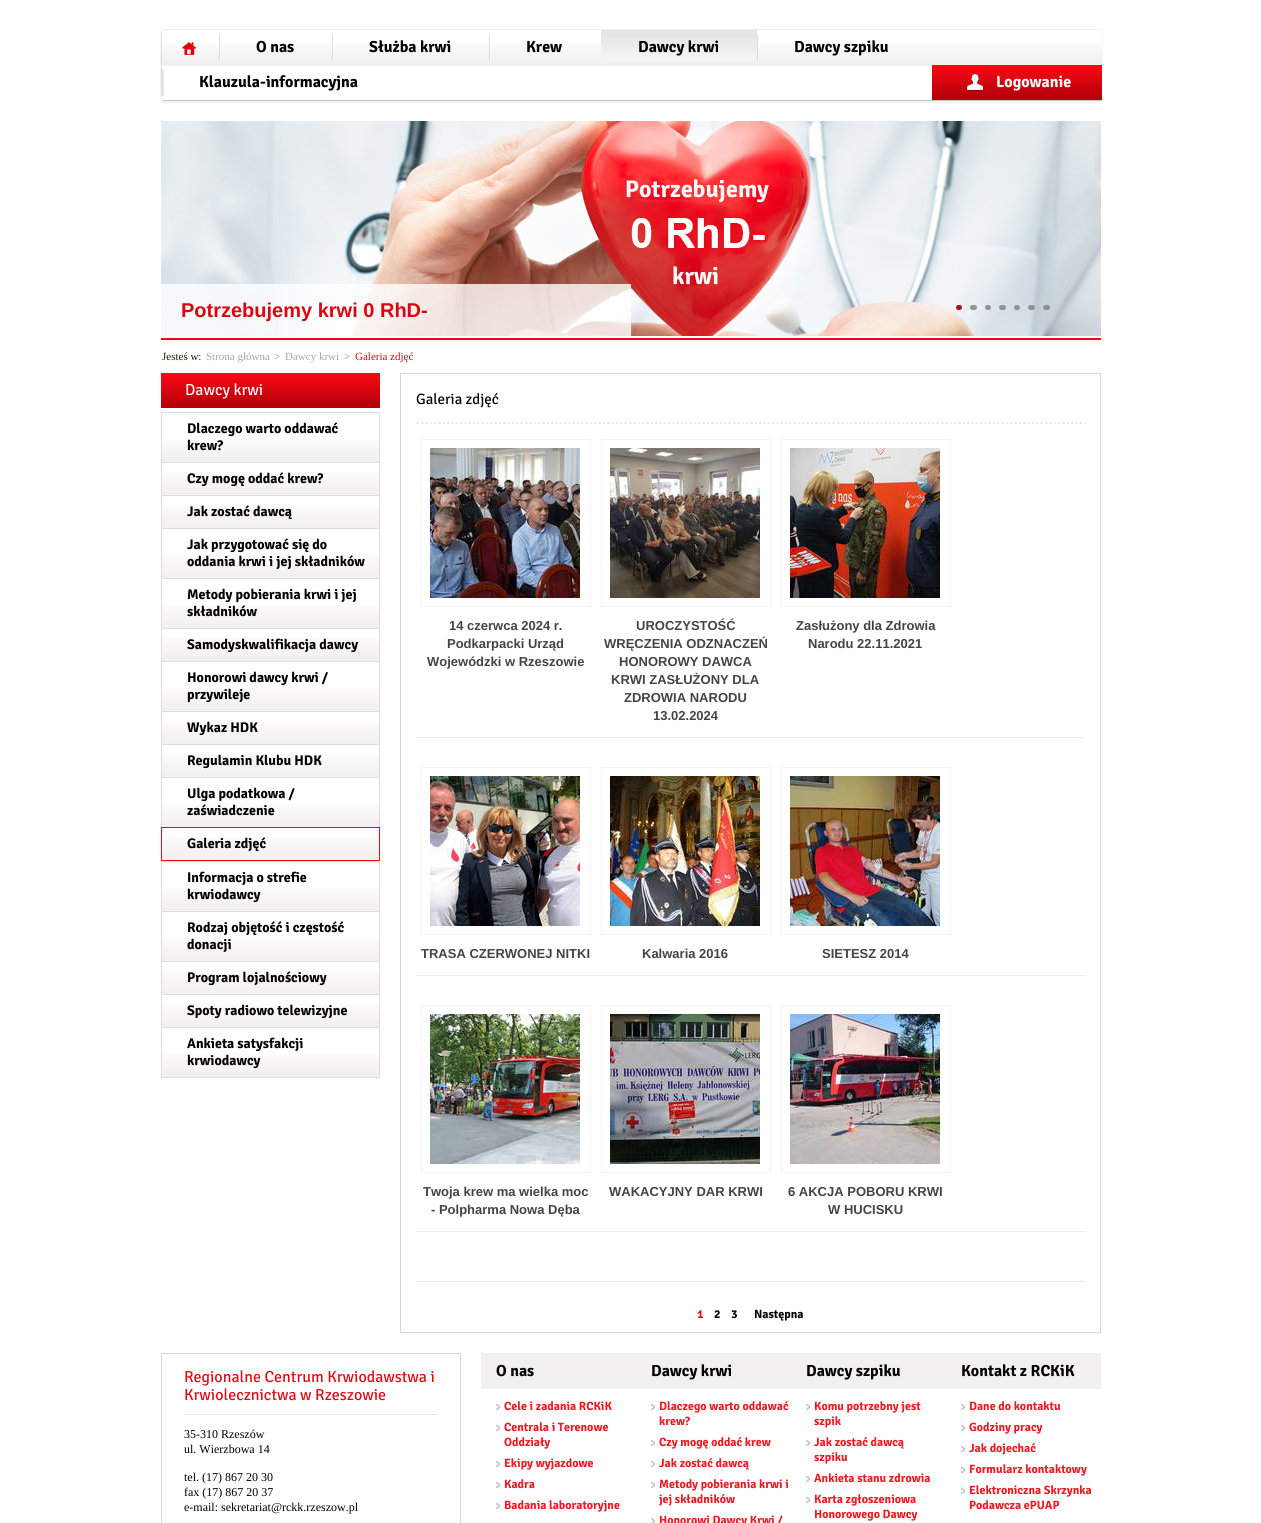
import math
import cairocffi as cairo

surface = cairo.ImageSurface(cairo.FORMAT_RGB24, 1261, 1523)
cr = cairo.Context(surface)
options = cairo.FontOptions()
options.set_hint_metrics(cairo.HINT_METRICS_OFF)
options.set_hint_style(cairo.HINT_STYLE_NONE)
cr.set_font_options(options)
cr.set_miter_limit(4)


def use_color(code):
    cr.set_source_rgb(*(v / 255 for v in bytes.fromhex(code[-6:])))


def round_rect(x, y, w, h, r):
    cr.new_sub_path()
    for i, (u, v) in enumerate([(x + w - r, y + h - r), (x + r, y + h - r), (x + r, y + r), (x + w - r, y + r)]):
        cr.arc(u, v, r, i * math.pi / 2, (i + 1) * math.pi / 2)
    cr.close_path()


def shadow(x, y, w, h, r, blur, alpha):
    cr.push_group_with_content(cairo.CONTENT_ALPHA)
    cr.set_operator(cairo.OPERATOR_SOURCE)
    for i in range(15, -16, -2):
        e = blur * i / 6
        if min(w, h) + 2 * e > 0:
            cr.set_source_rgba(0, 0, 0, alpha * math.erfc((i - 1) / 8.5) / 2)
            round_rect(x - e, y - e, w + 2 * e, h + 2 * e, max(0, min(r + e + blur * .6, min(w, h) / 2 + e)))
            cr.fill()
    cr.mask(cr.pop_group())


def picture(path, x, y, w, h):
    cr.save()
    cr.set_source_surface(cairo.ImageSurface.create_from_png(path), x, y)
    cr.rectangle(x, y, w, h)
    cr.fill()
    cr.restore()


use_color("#ffffff")
cr.paint()
use_color("#fdf5f5")
cr.rectangle(216, 0, 1, 1)
cr.fill()
cr.save()
cr.set_fill_rule(cairo.FILL_RULE_EVEN_ODD)
cr.new_path()
cr.move_to(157, 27)
cr.line_to(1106, 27)
cr.line_to(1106, 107)
cr.line_to(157, 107)
cr.close_path()
cr.move_to(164, 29)
cr.line_to(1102, 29)
cr.line_to(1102, 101)
cr.line_to(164, 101)
cr.curve_to(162.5, 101, 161, 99.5, 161, 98)
cr.line_to(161, 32)
cr.curve_to(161, 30.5, 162.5, 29, 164, 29)
cr.close_path()
cr.clip()
use_color("#eeeeee")
shadow(161, 31, 941, 72, 3, 1, 1)
cr.restore()
picture("img1.png", 162, 44, 940, 22)
use_color("#eeeeee")
cr.new_path()
cr.move_to(164, 29)
cr.line_to(162, 30)
cr.line_to(163, 31)
cr.line_to(163, 30)
cr.line_to(1102, 30)
cr.line_to(1102, 29)
cr.close_path()
cr.fill()
use_color("#c8c8c8")
cr.new_path()
cr.move_to(1102, 101)
cr.line_to(1102, 100)
cr.line_to(163, 100)
cr.line_to(163, 99)
cr.line_to(162, 100)
cr.line_to(164, 101)
cr.close_path()
cr.fill()
use_color("#dddddd")
cr.new_path()
cr.move_to(161, 32)
cr.curve_to(161, 39, 160, 99, 162, 100)
cr.line_to(163, 99)
cr.line_to(162, 98)
cr.line_to(162, 32)
cr.line_to(163, 31)
cr.line_to(162, 30)
cr.close_path()
cr.fill()
picture("img2.png", 182, 42, 14, 13)
picture("img3.png", 219, 34, 2, 27)
cr.select_font_face("Signika Negative", cairo.FONT_SLANT_NORMAL, cairo.FONT_WEIGHT_BOLD)
cr.set_font_size(16)
use_color("#000000")
cr.move_to(256, 52)
cr.show_text("O nas")
picture("img3.png", 332, 34, 2, 27)
cr.move_to(369, 52)
cr.show_text("Służba krwi")
picture("img3.png", 489, 34, 2, 27)
cr.move_to(526, 52)
cr.show_text("Krew")
picture("img4.png", 601, 30, 156, 31)
cr.move_to(638, 52)
cr.show_text("Dawcy krwi")
picture("img3.png", 757, 34, 2, 27)
cr.move_to(794, 52)
cr.show_text("Dawcy szpiku")
picture("img5.png", 162, 69, 3, 27)
cr.move_to(199, 87)
cr.show_text("Klauzula-informacyjna")
use_color("#b20009")
cr.rectangle(932, 97, 170, 3)
cr.fill()
picture("img6.png", 932, 65, 170, 32)
picture("img7.png", 967, 74, 16, 17)
use_color("#ffffff")
cr.move_to(996, 87)
cr.show_text("Logowanie")
use_color("#ff0000")
cr.rectangle(161, 338, 940, 2)
cr.fill()
picture("img8.png", 161, 121, 940, 215)
cr.set_source_rgba(1, 1, 1, 0.8)
cr.rectangle(161, 284, 470, 52)
cr.fill()
cr.select_font_face("Liberation Sans", cairo.FONT_SLANT_NORMAL, cairo.FONT_WEIGHT_BOLD)
cr.set_font_size(20)
use_color("#db050f")
cr.move_to(181, 317)
cr.show_text("Potrzebujemy krwi 0 RhD-")
use_color("#b80109")
round_rect(956, 305, 6, 5, 2.5)
cr.fill()
use_color("#929292")
round_rect(970, 305, 7, 5, 2.5)
cr.fill()
round_rect(985, 305, 6, 5, 2.5)
cr.fill()
round_rect(999, 305, 7, 5, 2.5)
cr.fill()
round_rect(1014, 305, 6, 5, 2.5)
cr.fill()
round_rect(1028, 305, 7, 5, 2.5)
cr.fill()
round_rect(1043, 305, 7, 5, 2.5)
cr.fill()
cr.select_font_face("Liberation Serif")
cr.set_font_size(11)
use_color("#1c1a00")
cr.move_to(162, 360)
cr.show_text("Jesteś w:")
use_color("#a5a5a5")
cr.move_to(206, 360)
cr.show_text("Strona główna")
use_color("#888888")
cr.move_to(274, 360)
cr.show_text(">")
use_color("#a5a5a5")
cr.move_to(285, 360)
cr.show_text("Dawcy krwi")
use_color("#888888")
cr.move_to(344, 360)
cr.show_text(">")
use_color("#db050f")
cr.move_to(355, 360)
cr.show_text("Galeria zdjęć")
use_color("#b20009")
cr.rectangle(161, 405, 219, 3)
cr.fill()
picture("img9.png", 161, 373, 219, 32)
cr.select_font_face("Signika Negative")
cr.set_font_size(16)
use_color("#ffffff")
cr.move_to(185, 395)
cr.show_text("Dawcy krwi")
use_color("#dedede")
cr.rectangle(161, 1077, 219, 1)
cr.fill()
cr.rectangle(161, 412, 219, 1)
cr.fill()
cr.rectangle(379, 412, 1, 50)
cr.fill()
cr.rectangle(161, 412, 1, 50)
cr.fill()
picture("img10.png", 162, 439, 217, 23)
cr.select_font_face("Signika Negative", cairo.FONT_SLANT_NORMAL, cairo.FONT_WEIGHT_BOLD)
cr.set_font_size(14)
use_color("#000000")
cr.move_to(187, 433)
cr.show_text("Dlaczego warto oddawać")
cr.move_to(187, 450)
cr.show_text("krew?")
use_color("#dedede")
cr.rectangle(161, 462, 219, 1)
cr.fill()
cr.rectangle(379, 462, 1, 33)
cr.fill()
cr.rectangle(161, 462, 1, 33)
cr.fill()
picture("img10.png", 162, 472, 217, 23)
use_color("#000000")
cr.move_to(187, 483)
cr.show_text("Czy mogę oddać krew?")
use_color("#dedede")
cr.rectangle(161, 495, 219, 1)
cr.fill()
cr.rectangle(379, 495, 1, 33)
cr.fill()
cr.rectangle(161, 495, 1, 33)
cr.fill()
picture("img10.png", 162, 505, 217, 23)
use_color("#000000")
cr.move_to(187, 516)
cr.show_text("Jak zostać dawcą")
use_color("#dedede")
cr.rectangle(161, 528, 219, 1)
cr.fill()
cr.rectangle(379, 528, 1, 50)
cr.fill()
cr.rectangle(161, 528, 1, 50)
cr.fill()
picture("img10.png", 162, 555, 217, 23)
use_color("#000000")
cr.move_to(187, 549)
cr.show_text("Jak przygotować się do")
cr.move_to(187, 566)
cr.show_text("oddania krwi i jej składników")
use_color("#dedede")
cr.rectangle(161, 578, 219, 1)
cr.fill()
cr.rectangle(379, 578, 1, 50)
cr.fill()
cr.rectangle(161, 578, 1, 50)
cr.fill()
picture("img10.png", 162, 605, 217, 23)
use_color("#000000")
cr.move_to(187, 599)
cr.show_text("Metody pobierania krwi i jej")
cr.move_to(187, 616)
cr.show_text("składników")
use_color("#dedede")
cr.rectangle(161, 628, 219, 1)
cr.fill()
cr.rectangle(379, 628, 1, 33)
cr.fill()
cr.rectangle(161, 628, 1, 33)
cr.fill()
picture("img10.png", 162, 638, 217, 23)
use_color("#000000")
cr.move_to(187, 649)
cr.show_text("Samodyskwalifikacja dawcy")
use_color("#dedede")
cr.rectangle(161, 661, 219, 1)
cr.fill()
cr.rectangle(379, 661, 1, 50)
cr.fill()
cr.rectangle(161, 661, 1, 50)
cr.fill()
picture("img10.png", 162, 688, 217, 23)
use_color("#000000")
cr.move_to(187, 682)
cr.show_text("Honorowi dawcy krwi /")
cr.move_to(187, 699)
cr.show_text("przywileje")
use_color("#dedede")
cr.rectangle(161, 711, 219, 1)
cr.fill()
cr.rectangle(379, 711, 1, 33)
cr.fill()
cr.rectangle(161, 711, 1, 33)
cr.fill()
picture("img10.png", 162, 721, 217, 23)
use_color("#000000")
cr.move_to(187, 732)
cr.show_text("Wykaz HDK")
use_color("#dedede")
cr.rectangle(161, 744, 219, 1)
cr.fill()
cr.rectangle(379, 744, 1, 33)
cr.fill()
cr.rectangle(161, 744, 1, 33)
cr.fill()
picture("img10.png", 162, 754, 217, 23)
use_color("#000000")
cr.move_to(187, 765)
cr.show_text("Regulamin Klubu HDK")
use_color("#dedede")
cr.rectangle(161, 777, 219, 1)
cr.fill()
cr.rectangle(379, 777, 1, 50)
cr.fill()
cr.rectangle(161, 777, 1, 50)
cr.fill()
picture("img10.png", 162, 804, 217, 23)
use_color("#000000")
cr.move_to(187, 798)
cr.show_text("Ulga podatkowa /")
cr.move_to(187, 815)
cr.show_text("zaświadczenie")
cr.rectangle(161.5, 827.5, 218, 33)
use_color("#f20813")
cr.set_line_width(1)
cr.stroke()
picture("img10.png", 162, 837, 217, 23)
use_color("#000000")
cr.move_to(187, 848)
cr.show_text("Galeria zdjęć")
use_color("#dedede")
cr.rectangle(161, 861, 219, 1)
cr.fill()
cr.rectangle(379, 861, 1, 50)
cr.fill()
cr.rectangle(161, 861, 1, 50)
cr.fill()
picture("img10.png", 162, 888, 217, 23)
use_color("#000000")
cr.move_to(187, 882)
cr.show_text("Informacja o strefie")
cr.move_to(187, 899)
cr.show_text("krwiodawcy")
use_color("#dedede")
cr.rectangle(161, 911, 219, 1)
cr.fill()
cr.rectangle(379, 911, 1, 50)
cr.fill()
cr.rectangle(161, 911, 1, 50)
cr.fill()
picture("img10.png", 162, 938, 217, 23)
use_color("#000000")
cr.move_to(187, 932)
cr.show_text("Rodzaj objętość i częstość")
cr.move_to(187, 949)
cr.show_text("donacji")
use_color("#dedede")
cr.rectangle(161, 961, 219, 1)
cr.fill()
cr.rectangle(379, 961, 1, 33)
cr.fill()
cr.rectangle(161, 961, 1, 33)
cr.fill()
picture("img10.png", 162, 971, 217, 23)
use_color("#000000")
cr.move_to(187, 982)
cr.show_text("Program lojalnościowy")
use_color("#dedede")
cr.rectangle(161, 994, 219, 1)
cr.fill()
cr.rectangle(379, 994, 1, 33)
cr.fill()
cr.rectangle(161, 994, 1, 33)
cr.fill()
picture("img10.png", 162, 1004, 217, 23)
use_color("#000000")
cr.move_to(187, 1015)
cr.show_text("Spoty radiowo telewizyjne")
use_color("#dedede")
cr.rectangle(161, 1027, 219, 1)
cr.fill()
cr.rectangle(379, 1027, 1, 50)
cr.fill()
cr.rectangle(161, 1027, 1, 50)
cr.fill()
picture("img10.png", 162, 1054, 217, 23)
use_color("#000000")
cr.move_to(187, 1048)
cr.show_text("Ankieta satysfakcji")
cr.move_to(187, 1065)
cr.show_text("krwiodawcy")
cr.rectangle(400.5, 373.5, 700, 959)
use_color("#d6d6d6")
cr.stroke()
picture("img11.png", 416, 422, 669, 2)
cr.select_font_face("Signika Negative")
cr.set_font_size(15)
use_color("#000000")
cr.move_to(416, 404)
cr.show_text("Galeria zdjęć")
cr.rectangle(421.5, 439.5, 169, 167)
use_color("#f5f5f5")
cr.stroke()
picture("img12.png", 430, 448, 150, 150)
cr.select_font_face("Liberation Sans", cairo.FONT_SLANT_NORMAL, cairo.FONT_WEIGHT_BOLD)
cr.set_font_size(13)
use_color("#444444")
cr.move_to(449, 630)
cr.show_text("14 czerwca 2024 r.")
cr.move_to(447, 648)
cr.show_text("Podkarpacki Urząd")
cr.move_to(427, 666)
cr.show_text("Wojewódzki w Rzeszowie")
cr.rectangle(601.5, 439.5, 169, 167)
use_color("#f5f5f5")
cr.stroke()
picture("img13.png", 610, 448, 150, 150)
use_color("#444444")
cr.move_to(636, 630)
cr.show_text("UROCZYSTOŚĆ")
cr.move_to(604, 648)
cr.show_text("WRĘCZENIA ODZNACZEŃ")
cr.move_to(619, 666)
cr.show_text("HONOROWY DAWCA")
cr.move_to(611, 684)
cr.show_text("KRWI ZASŁUŻONY DLA")
cr.move_to(624, 702)
cr.show_text("ZDROWIA NARODU")
cr.move_to(653, 720)
cr.show_text("13.02.2024")
cr.rectangle(781.5, 439.5, 169, 167)
use_color("#f5f5f5")
cr.stroke()
picture("img14.png", 790, 448, 150, 150)
use_color("#444444")
cr.move_to(796, 630)
cr.show_text("Zasłużony dla Zdrowia")
cr.move_to(808, 648)
cr.show_text("Narodu 22.11.2021")
use_color("#ecedf3")
cr.rectangle(416, 737, 669, 1)
cr.fill()
cr.rectangle(421.5, 767.5, 169, 167)
use_color("#f5f5f5")
cr.stroke()
picture("img15.png", 430, 776, 150, 150)
use_color("#444444")
cr.move_to(421, 958)
cr.show_text("TRASA CZERWONEJ NITKI")
cr.rectangle(601.5, 767.5, 169, 167)
use_color("#f5f5f5")
cr.stroke()
picture("img16.png", 610, 776, 150, 150)
use_color("#444444")
cr.move_to(642, 958)
cr.show_text("Kalwaria 2016")
cr.rectangle(781.5, 767.5, 169, 167)
use_color("#f5f5f5")
cr.stroke()
picture("img17.png", 790, 776, 150, 150)
use_color("#444444")
cr.move_to(822, 958)
cr.show_text("SIETESZ 2014")
use_color("#ecedf3")
cr.rectangle(416, 975, 669, 1)
cr.fill()
cr.rectangle(421.5, 1005.5, 169, 167)
use_color("#f5f5f5")
cr.stroke()
picture("img18.png", 430, 1014, 150, 150)
use_color("#444444")
cr.move_to(423, 1196)
cr.show_text("Twoja krew ma wielka moc")
cr.move_to(431, 1214)
cr.show_text("- Polpharma Nowa Dęba")
cr.rectangle(601.5, 1005.5, 169, 167)
use_color("#f5f5f5")
cr.stroke()
picture("img19.png", 610, 1014, 150, 150)
use_color("#444444")
cr.move_to(609, 1196)
cr.show_text("WAKACYJNY DAR KRWI")
cr.rectangle(781.5, 1005.5, 169, 167)
use_color("#f5f5f5")
cr.stroke()
picture("img20.png", 790, 1014, 150, 150)
use_color("#444444")
cr.move_to(788, 1196)
cr.show_text("6 AKCJA POBORU KRWI")
cr.move_to(828, 1214)
cr.show_text("W HUCISKU")
use_color("#ecedf3")
cr.rectangle(416, 1231, 669, 1)
cr.fill()
use_color("#e7e7e7")
cr.rectangle(416, 1281, 669, 1)
cr.fill()
cr.select_font_face("Signika Negative", cairo.FONT_SLANT_NORMAL, cairo.FONT_WEIGHT_BOLD)
cr.set_font_size(12)
use_color("#e40611")
cr.move_to(697, 1318)
cr.show_text("1")
use_color("#000000")
cr.move_to(714, 1318)
cr.show_text("2")
cr.move_to(731, 1318)
cr.show_text("3")
cr.move_to(754, 1318)
cr.show_text("Następna")
cr.rectangle(161.5, 1353.5, 299, 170)
use_color("#d7d7d7")
cr.stroke()
use_color("#e7e7e7")
cr.rectangle(184, 1414, 254, 1)
cr.fill()
cr.select_font_face("Signika Negative")
cr.set_font_size(16)
use_color("#e40611")
cr.move_to(184, 1382)
cr.show_text("Regionalne Centrum Krwiodawstwa i")
cr.move_to(184, 1400)
cr.show_text("Krwiolecznictwa w Rzeszowie")
cr.select_font_face("Liberation Serif")
cr.set_font_size(12)
use_color("#000000")
cr.move_to(184, 1438)
cr.show_text("35-310 Rzeszów")
cr.move_to(184, 1453)
cr.show_text("ul. Wierzbowa 14")
cr.move_to(184, 1481)
cr.show_text("tel. (17) 867 20 30")
cr.move_to(184, 1496)
cr.show_text("fax (17) 867 20 37")
cr.move_to(184, 1511)
cr.show_text("e-mail: sekretariat@rckk.rzeszow.pl")
use_color("#f2f0f0")
cr.rectangle(481, 1353, 620, 36)
cr.fill()
cr.select_font_face("Signika Negative", cairo.FONT_SLANT_NORMAL, cairo.FONT_WEIGHT_BOLD)
cr.set_font_size(16)
use_color("#000000")
cr.move_to(496, 1376)
cr.show_text("O nas")
picture("img21.png", 496, 1404, 4, 6)
cr.set_font_size(12)
use_color("#ee1923")
cr.move_to(504, 1410)
cr.show_text("Cele i zadania RCKiK")
picture("img21.png", 496, 1425, 4, 6)
cr.move_to(504, 1431)
cr.show_text("Centrala i Terenowe")
cr.move_to(504, 1446)
cr.show_text("Oddziały")
picture("img21.png", 496, 1461, 4, 6)
cr.move_to(504, 1467)
cr.show_text("Ekipy wyjazdowe")
picture("img21.png", 496, 1482, 4, 6)
cr.move_to(504, 1488)
cr.show_text("Kadra")
picture("img21.png", 496, 1503, 4, 6)
cr.move_to(504, 1509)
cr.show_text("Badania laboratoryjne")
cr.set_font_size(16)
use_color("#000000")
cr.move_to(651, 1376)
cr.show_text("Dawcy krwi")
picture("img21.png", 651, 1404, 4, 6)
cr.set_font_size(12)
use_color("#ee1923")
cr.move_to(659, 1410)
cr.show_text("Dlaczego warto oddawać")
cr.move_to(659, 1425)
cr.show_text("krew?")
picture("img21.png", 651, 1440, 4, 6)
cr.move_to(659, 1446)
cr.show_text("Czy mogę oddać krew")
picture("img21.png", 651, 1461, 4, 6)
cr.move_to(659, 1467)
cr.show_text("Jak zostać dawcą")
picture("img21.png", 651, 1482, 4, 6)
cr.move_to(659, 1488)
cr.show_text("Metody pobierania krwi i")
cr.move_to(659, 1503)
cr.show_text("jej składników")
picture("img22.png", 651, 1518, 4, 5)
cr.move_to(659, 1524)
cr.show_text("Honorowi Dawcy Krwi /")
cr.set_font_size(16)
use_color("#000000")
cr.move_to(806, 1376)
cr.show_text("Dawcy szpiku")
picture("img21.png", 806, 1404, 4, 6)
cr.set_font_size(12)
use_color("#ee1923")
cr.move_to(814, 1410)
cr.show_text("Komu potrzebny jest")
cr.move_to(814, 1425)
cr.show_text("szpik")
picture("img21.png", 806, 1440, 4, 6)
cr.move_to(814, 1446)
cr.show_text("Jak zostać dawcą")
cr.move_to(814, 1461)
cr.show_text("szpiku")
picture("img21.png", 806, 1476, 4, 6)
cr.move_to(814, 1482)
cr.show_text("Ankieta stanu zdrowia")
picture("img21.png", 806, 1497, 4, 6)
cr.move_to(814, 1503)
cr.show_text("Karta zgłoszeniowa")
cr.move_to(814, 1518)
cr.show_text("Honorowego Dawcy")
cr.set_font_size(16)
use_color("#000000")
cr.move_to(961, 1376)
cr.show_text("Kontakt z RCKiK")
picture("img21.png", 961, 1404, 4, 6)
cr.set_font_size(12)
use_color("#ee1923")
cr.move_to(969, 1410)
cr.show_text("Dane do kontaktu")
picture("img21.png", 961, 1425, 4, 6)
cr.move_to(969, 1431)
cr.show_text("Godziny pracy")
picture("img21.png", 961, 1446, 4, 6)
cr.move_to(969, 1452)
cr.show_text("Jak dojechać")
picture("img21.png", 961, 1467, 4, 6)
cr.move_to(969, 1473)
cr.show_text("Formularz kontaktowy")
picture("img21.png", 961, 1488, 4, 6)
cr.move_to(969, 1494)
cr.show_text("Elektroniczna Skrzynka")
cr.move_to(969, 1509)
cr.show_text("Podawcza ePUAP")
surface.write_to_png("result.png")
